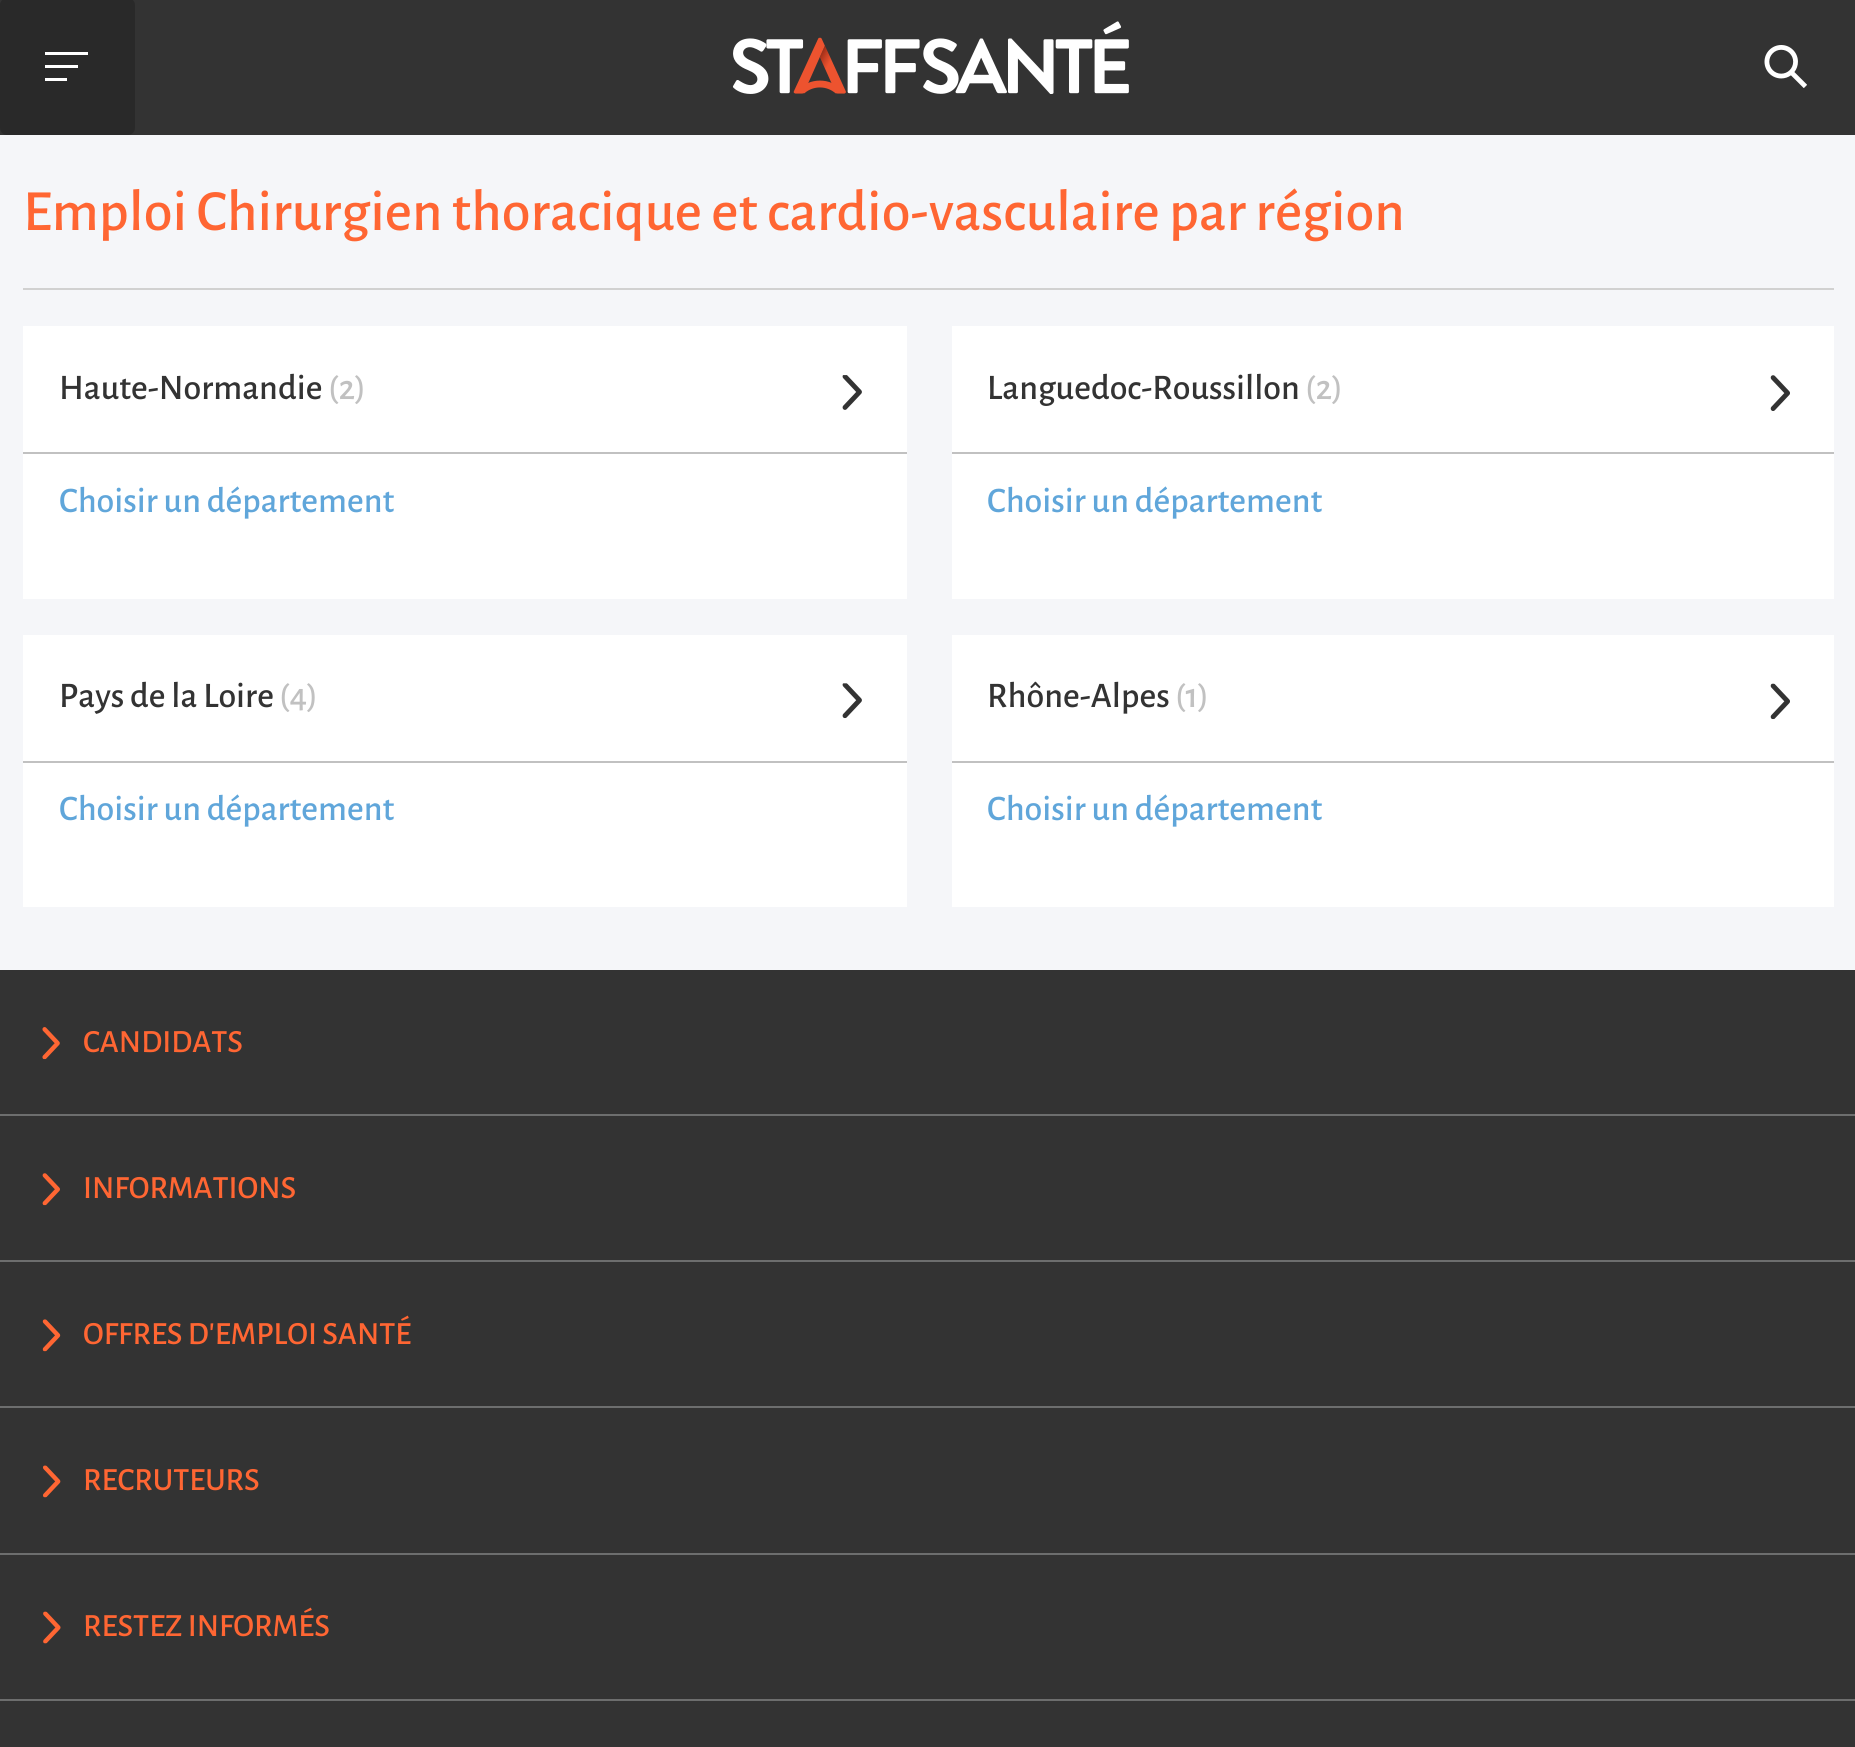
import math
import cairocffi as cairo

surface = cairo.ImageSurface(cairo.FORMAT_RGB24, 1855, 1747)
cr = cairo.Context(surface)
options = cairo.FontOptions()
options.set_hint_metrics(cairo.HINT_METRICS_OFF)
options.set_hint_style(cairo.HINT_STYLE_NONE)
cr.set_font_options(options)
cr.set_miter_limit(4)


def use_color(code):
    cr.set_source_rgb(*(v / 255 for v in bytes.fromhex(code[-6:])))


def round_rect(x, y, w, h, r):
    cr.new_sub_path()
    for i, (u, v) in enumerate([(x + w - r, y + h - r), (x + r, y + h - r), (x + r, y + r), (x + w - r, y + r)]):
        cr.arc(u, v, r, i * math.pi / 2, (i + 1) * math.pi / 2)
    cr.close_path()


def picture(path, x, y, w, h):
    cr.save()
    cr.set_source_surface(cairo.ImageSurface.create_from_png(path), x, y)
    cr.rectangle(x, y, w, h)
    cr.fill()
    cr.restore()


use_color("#f5f6f9")
cr.paint()
use_color("#333333")
cr.rectangle(0, 0, 1855, 135)
cr.fill()
use_color("#292929")
round_rect(0, -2, 135, 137, 7)
cr.fill()
use_color("#ffffff")
cr.new_path()
cr.move_to(87, 55)
cr.line_to(88, 55)
cr.line_to(88, 52)
cr.line_to(45, 52)
cr.line_to(45, 55)
cr.close_path()
cr.move_to(76, 68)
cr.line_to(78, 68)
cr.line_to(78, 65)
cr.line_to(45, 65)
cr.line_to(45, 68)
cr.close_path()
cr.move_to(65, 81)
cr.line_to(67, 81)
cr.line_to(67, 78)
cr.line_to(45, 78)
cr.line_to(45, 81)
cr.close_path()
cr.fill()
picture("img1.png", 732, 21, 397, 73)
picture("img2.png", 1764, 45, 43, 43)
use_color("#d1d1d1")
cr.rectangle(23, 288, 1811, 2)
cr.fill()
cr.select_font_face("Alegreya Sans Medium")
cr.set_font_size(58.5)
use_color("#ff6633")
cr.move_to(23, 230)
cr.show_text("Emploi Chirurgien thoracique et cardio-vasculaire par région")
use_color("#ffffff")
cr.rectangle(23, 326, 884, 273)
cr.fill()
use_color("#c1c1c1")
cr.rectangle(23, 452, 884, 2)
cr.fill()
cr.set_font_size(36)
use_color("#333333")
cr.move_to(59, 399)
cr.show_text("Haute-Normandie")
use_color("#c1c1c1")
cr.move_to(328, 399)
cr.show_text("(2)")
picture("img3.png", 842, 375, 20, 35)
use_color("#60a6da")
cr.move_to(59, 512)
cr.show_text("Choisir un département")
use_color("#ffffff")
cr.rectangle(952, 326, 882, 273)
cr.fill()
use_color("#c1c1c1")
cr.rectangle(952, 452, 882, 2)
cr.fill()
use_color("#333333")
cr.move_to(987, 399)
cr.show_text("Languedoc-Roussillon")
use_color("#c1c1c1")
cr.move_to(1305, 399)
cr.show_text("(2)")
picture("img4.png", 1770, 375, 20, 36)
use_color("#60a6da")
cr.move_to(987, 512)
cr.show_text("Choisir un département")
use_color("#ffffff")
cr.rectangle(23, 635, 884, 272)
cr.fill()
use_color("#c1c1c1")
cr.rectangle(23, 761, 884, 2)
cr.fill()
use_color("#333333")
cr.move_to(59, 707)
cr.show_text("Pays de la Loire")
use_color("#c1c1c1")
cr.move_to(279, 707)
cr.show_text("(4)")
picture("img5.png", 842, 683, 20, 36)
use_color("#60a6da")
cr.move_to(59, 820)
cr.show_text("Choisir un département")
use_color("#ffffff")
cr.rectangle(952, 635, 882, 272)
cr.fill()
use_color("#c1c1c1")
cr.rectangle(952, 761, 882, 2)
cr.fill()
use_color("#333333")
cr.move_to(987, 707)
cr.show_text("Rhône-Alpes")
use_color("#c1c1c1")
cr.move_to(1175, 707)
cr.show_text("(1)")
picture("img6.png", 1770, 683, 20, 37)
use_color("#60a6da")
cr.move_to(987, 820)
cr.show_text("Choisir un département")
use_color("#333333")
cr.rectangle(0, 970, 1855, 777)
cr.fill()
use_color("#6d6e6e")
cr.rectangle(0, 1114, 1855, 2)
cr.fill()
picture("img7.png", 42, 1027, 18, 33)
cr.set_font_size(32.4)
use_color("#ff6633")
cr.move_to(83, 1052)
cr.show_text("CANDIDATS")
use_color("#6d6e6e")
cr.rectangle(0, 1260, 1855, 2)
cr.fill()
picture("img8.png", 42, 1173, 18, 33)
use_color("#ff6633")
cr.move_to(83, 1198)
cr.show_text("INFORMATIONS")
use_color("#6d6e6e")
cr.rectangle(0, 1406, 1855, 2)
cr.fill()
picture("img9.png", 42, 1319, 19, 33)
use_color("#ff6633")
cr.move_to(83, 1344)
cr.show_text("OFFRES D'EMPLOI SANTÉ")
use_color("#6d6e6e")
cr.rectangle(0, 1553, 1855, 2)
cr.fill()
picture("img10.png", 43, 1465, 18, 33)
use_color("#ff6633")
cr.move_to(83, 1490)
cr.show_text("RECRUTEURS")
use_color("#6d6e6e")
cr.rectangle(0, 1699, 1855, 2)
cr.fill()
picture("img11.png", 43, 1611, 18, 33)
use_color("#ff6633")
cr.move_to(83, 1636)
cr.show_text("RESTEZ INFORMÉS")
surface.write_to_png("result.png")
